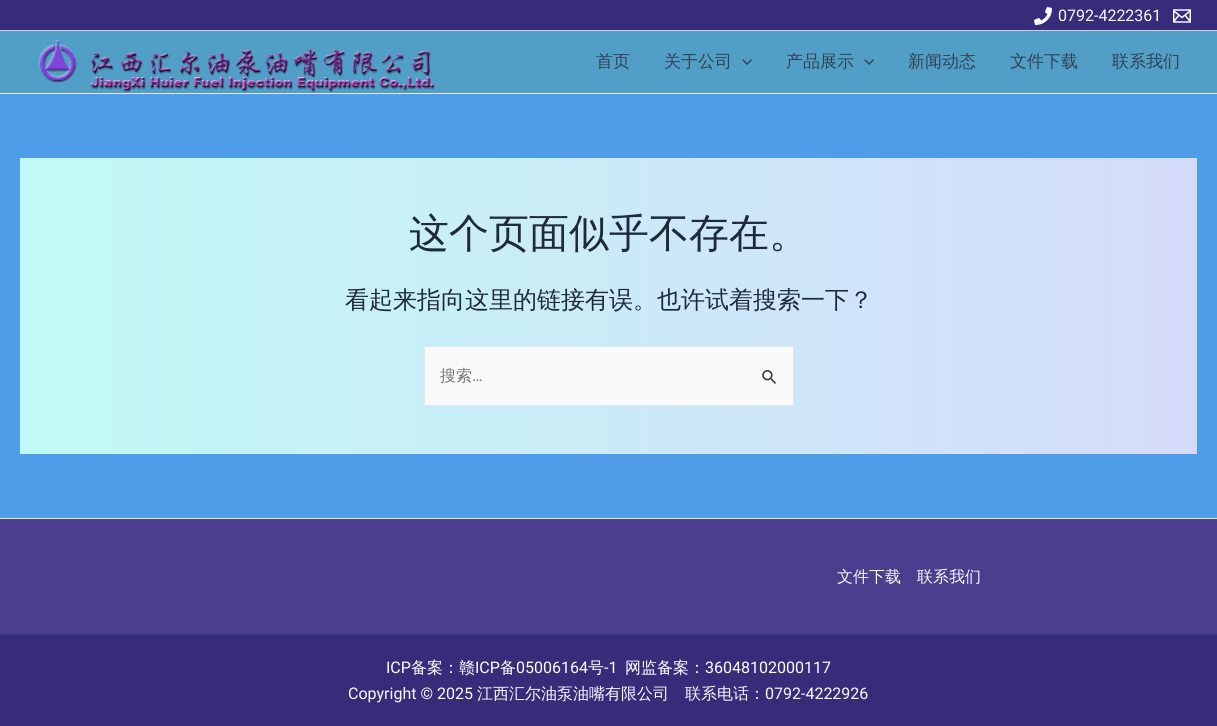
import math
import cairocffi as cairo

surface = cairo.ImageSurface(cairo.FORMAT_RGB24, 1217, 726)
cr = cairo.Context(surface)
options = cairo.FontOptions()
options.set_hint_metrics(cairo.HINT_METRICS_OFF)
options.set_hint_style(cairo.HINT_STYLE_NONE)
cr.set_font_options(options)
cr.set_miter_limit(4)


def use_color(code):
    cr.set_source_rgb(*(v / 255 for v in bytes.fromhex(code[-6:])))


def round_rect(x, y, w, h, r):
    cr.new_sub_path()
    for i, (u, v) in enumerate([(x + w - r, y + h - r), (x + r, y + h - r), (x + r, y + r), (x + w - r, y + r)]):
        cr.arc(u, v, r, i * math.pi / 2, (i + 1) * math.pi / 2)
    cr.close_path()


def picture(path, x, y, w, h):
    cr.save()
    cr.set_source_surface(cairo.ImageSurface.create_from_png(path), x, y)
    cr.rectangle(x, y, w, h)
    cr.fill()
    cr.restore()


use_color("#4f9ce9")
cr.paint()
use_color("#362c7a")
cr.rectangle(0, 0, 1217, 30)
cr.fill()
use_color("#cbd5e1")
cr.rectangle(0, 30, 1217, 1)
cr.fill()
picture("img1.png", 1034, 7, 18, 18)
cr.select_font_face("Roboto")
cr.set_font_size(16)
use_color("#f9fafb")
cr.move_to(1058, 21)
cr.show_text("0792-4222361")
picture("img2.png", 1173, 9, 18, 14)
use_color("#519fc6")
cr.rectangle(0, 31, 1217, 62)
cr.fill()
use_color("#eaeaea")
cr.rectangle(0, 93, 1217, 1)
cr.fill()
picture("img3.png", 38, 39, 397, 54)
cr.select_font_face("WenQuanYi Zen Hei Medium")
cr.set_font_size(17)
use_color("#334155")
cr.move_to(596, 67)
cr.show_text("首页")
cr.move_to(664, 67)
cr.show_text("关于公司")
picture("img4.png", 742, 59, 10, 6)
cr.move_to(786, 67)
cr.show_text("产品展示")
picture("img4.png", 864, 59, 10, 6)
cr.move_to(908, 67)
cr.show_text("新闻动态")
cr.move_to(1010, 67)
cr.show_text("文件下载")
cr.move_to(1112, 67)
cr.show_text("联系我们")
gradient = cairo.LinearGradient(20, 306, 1197, 306)
gradient.add_color_stop_rgba(0, 0.757, 0.98, 0.961, 1)
gradient.add_color_stop_rgba(1, 0.835, 0.859, 0.98, 1)
cr.set_source(gradient)
cr.rectangle(20, 158, 1177, 296)
cr.fill()
cr.set_font_size(40)
use_color("#1e293b")
cr.move_to(409, 247)
cr.show_text("这个页面似乎不存在。")
cr.set_font_size(24)
cr.move_to(345, 308)
cr.show_text("看起来指向这里的链接有误。也许试着搜索一下？")
use_color("#fafafa")
round_rect(424.5, 346.5, 369, 59, 1.5)
cr.fill_preserve()
use_color("#e2e8f0")
cr.set_line_width(1)
cr.stroke()
cr.set_font_size(16)
use_color("#757575")
cr.move_to(440, 381)
cr.show_text("搜索")
cr.select_font_face("Roboto")
cr.move_to(472, 381)
cr.show_text("…")
picture("img5.png", 762, 370, 15, 14)
use_color("#4a3f8f")
cr.rectangle(0, 519, 1217, 115)
cr.fill()
use_color("#e6e6e6")
cr.rectangle(0, 518, 1217, 1)
cr.fill()
cr.select_font_face("WenQuanYi Zen Hei Medium")
use_color("#f9fafb")
cr.move_to(837, 582)
cr.show_text("文件下载")
cr.move_to(917, 582)
cr.show_text("联系我们")
use_color("#362c7a")
cr.rectangle(0, 635, 1217, 91)
cr.fill()
use_color("#2a3f7c")
cr.rectangle(0, 634, 1217, 1)
cr.fill()
cr.select_font_face("Roboto")
use_color("#ffffff")
cr.move_to(386, 673)
cr.show_text("ICP")
cr.select_font_face("WenQuanYi Zen Hei Medium")
cr.move_to(411, 673)
cr.show_text("备案：赣")
cr.select_font_face("Roboto")
cr.move_to(475, 673)
cr.show_text("ICP")
cr.select_font_face("WenQuanYi Zen Hei Medium")
cr.move_to(500, 673)
cr.show_text("备")
cr.select_font_face("Roboto")
cr.move_to(516, 673)
cr.show_text("05006164")
cr.select_font_face("WenQuanYi Zen Hei Medium")
cr.move_to(588, 673)
cr.show_text("号")
cr.select_font_face("Roboto")
cr.move_to(604, 673)
cr.show_text("-1")
cr.select_font_face("WenQuanYi Zen Hei Medium")
cr.move_to(625, 673)
cr.show_text("网监备案：")
cr.select_font_face("Roboto")
cr.move_to(705, 673)
cr.show_text("36048102000117")
use_color("#f9fafb")
cr.move_to(348, 699)
cr.show_text("Copyright © 2025")
cr.select_font_face("WenQuanYi Zen Hei Medium")
cr.move_to(477, 699)
cr.show_text("江西汇尔油泵油嘴有限公司")
cr.move_to(685, 699)
cr.show_text("联系电话：")
cr.select_font_face("Roboto")
cr.move_to(765, 699)
cr.show_text("0792-4222926")
surface.write_to_png("result.png")
